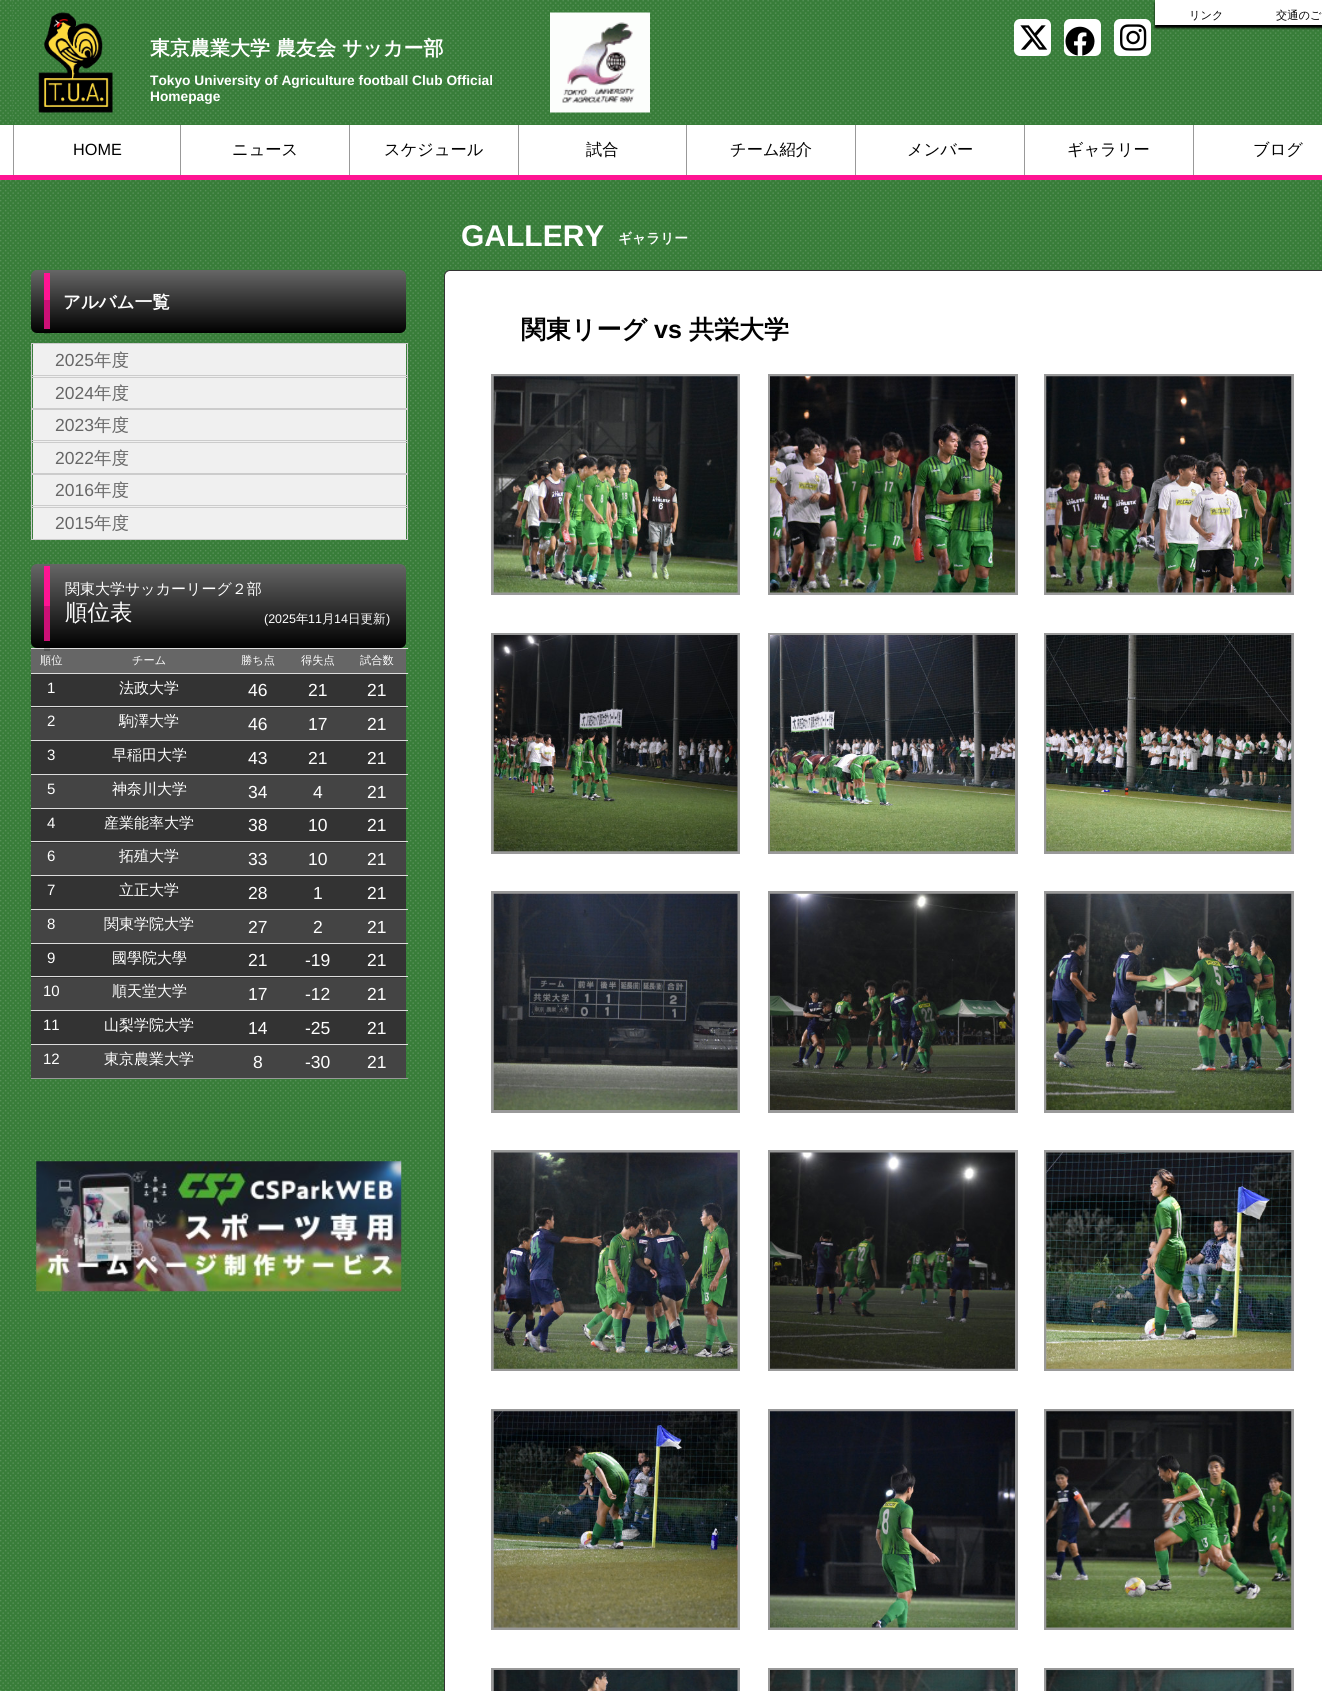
import math
import cairocffi as cairo

surface = cairo.ImageSurface(cairo.FORMAT_RGB24, 1322, 1691)
cr = cairo.Context(surface)
options = cairo.FontOptions()
options.set_hint_metrics(cairo.HINT_METRICS_OFF)
options.set_hint_style(cairo.HINT_STYLE_NONE)
cr.set_font_options(options)
cr.set_miter_limit(4)


def use_color(code):
    cr.set_source_rgb(*(v / 255 for v in bytes.fromhex(code[-6:])))


def round_rect(x, y, w, h, r):
    cr.new_sub_path()
    for i, (u, v) in enumerate([(x + w - r, y + h - r), (x + r, y + h - r), (x + r, y + r), (x + w - r, y + r)]):
        cr.arc(u, v, r, i * math.pi / 2, (i + 1) * math.pi / 2)
    cr.close_path()


def shadow(x, y, w, h, r, blur, alpha):
    cr.push_group_with_content(cairo.CONTENT_ALPHA)
    cr.set_operator(cairo.OPERATOR_SOURCE)
    for i in range(15, -16, -2):
        e = blur * i / 6
        if min(w, h) + 2 * e > 0:
            cr.set_source_rgba(0, 0, 0, alpha * math.erfc((i - 1) / 8.5) / 2)
            round_rect(x - e, y - e, w + 2 * e, h + 2 * e, max(0, min(r + e + blur * .6, min(w, h) / 2 + e)))
            cr.fill()
    cr.mask(cr.pop_group())


def picture(path, x, y, w, h):
    cr.save()
    cr.set_source_surface(cairo.ImageSurface.create_from_png(path), x, y)
    cr.rectangle(x, y, w, h)
    cr.fill()
    cr.restore()


use_color("#387d39")
cr.paint()
picture("img1.png", 0, 0, 1322, 1691)
use_color("#387d39")
cr.rectangle(13, 0, 1309, 124)
cr.fill()
picture("img2.png", 12, 0, 1310, 124)
use_color("#000000")
shadow(1155, 3, 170, 25, 0, 1, 1)
use_color("#ffffff")
cr.rectangle(1155, 0, 167, 25)
cr.fill()
cr.select_font_face("WenQuanYi Zen Hei Medium")
cr.set_font_size(11.25)
use_color("#000000")
cr.move_to(1189, 19)
cr.show_text("リンク")
cr.move_to(1276, 19)
cr.show_text("交通のご")
picture("img3.png", 38, 12, 75, 101)
cr.select_font_face("WenQuanYi Zen Hei", cairo.FONT_SLANT_NORMAL, cairo.FONT_WEIGHT_BOLD)
cr.set_font_size(20)
use_color("#ffffff")
cr.move_to(150, 55)
cr.show_text("東京農業大学 農友会 サッカー部")
cr.select_font_face("Liberation Sans", cairo.FONT_SLANT_NORMAL, cairo.FONT_WEIGHT_BOLD)
cr.set_font_size(13.75)
cr.move_to(150, 85)
cr.show_text("Tokyo University of Agriculture football Club Official")
cr.move_to(150, 101)
cr.show_text("Homepage")
picture("img4.png", 550, 12, 100, 101)
round_rect(1014, 19, 37, 37, 6)
cr.fill()
picture("img5.png", 1020, 25, 28, 25)
round_rect(1064, 19, 37, 37, 6)
cr.fill()
picture("img6.png", 1065, 26, 30, 30)
round_rect(1114, 19, 37, 37, 6)
cr.fill()
picture("img7.png", 1120, 24, 27, 27)
cr.rectangle(0, 125, 1322, 50)
cr.fill()
use_color("#999999")
cr.rectangle(180, 125, 1, 50)
cr.fill()
cr.rectangle(13, 125, 1, 50)
cr.fill()
cr.select_font_face("Liberation Sans")
cr.set_font_size(16.25)
use_color("#000000")
cr.move_to(73, 155)
cr.show_text("HOME")
use_color("#999999")
cr.rectangle(349, 125, 1, 50)
cr.fill()
cr.select_font_face("WenQuanYi Zen Hei Medium")
use_color("#000000")
cr.move_to(232, 155)
cr.show_text("ニュース")
use_color("#999999")
cr.rectangle(518, 125, 1, 50)
cr.fill()
use_color("#000000")
cr.move_to(384, 155)
cr.show_text("スケジュール")
use_color("#999999")
cr.rectangle(686, 125, 1, 50)
cr.fill()
use_color("#000000")
cr.move_to(586, 155)
cr.show_text("試合")
use_color("#999999")
cr.rectangle(855, 125, 1, 50)
cr.fill()
use_color("#000000")
cr.move_to(730, 155)
cr.show_text("チーム紹介")
use_color("#999999")
cr.rectangle(1024, 125, 1, 50)
cr.fill()
use_color("#000000")
cr.move_to(907, 155)
cr.show_text("メンバー")
use_color("#999999")
cr.rectangle(1193, 125, 1, 50)
cr.fill()
use_color("#000000")
cr.move_to(1067, 155)
cr.show_text("ギャラリー")
cr.move_to(1253, 155)
cr.show_text("ブログ")
use_color("#ff1493")
cr.rectangle(0, 175, 1322, 5)
cr.fill()
gradient = cairo.LinearGradient(31, 270, 31, 333)
gradient.add_color_stop_rgba(0, 0.4, 0.4, 0.4, 1)
gradient.add_color_stop_rgba(1, 0, 0, 0, 1)
cr.set_source(gradient)
round_rect(31, 270, 375, 63, 6)
cr.fill()
use_color("#ff1493")
cr.rectangle(44, 273, 6, 56)
cr.fill()
cr.set_source_rgba(0, 0, 0, 0.2)
cr.rectangle(44, 300, 6, 34)
cr.fill()
cr.select_font_face("WenQuanYi Zen Hei", cairo.FONT_SLANT_NORMAL, cairo.FONT_WEIGHT_BOLD)
cr.set_font_size(17.5)
use_color("#ffffff")
cr.move_to(63, 308)
cr.show_text("アルバム一覧")
use_color("#f0f0f0")
cr.rectangle(33, 344, 373, 31)
cr.fill()
cr.rectangle(33, 376, 373, 32)
cr.fill()
cr.rectangle(31.5, 343.5, 376, 34)
use_color("#cccccc")
cr.set_line_width(1)
cr.stroke()
cr.select_font_face("Liberation Sans")
use_color("#666666")
cr.move_to(55, 366)
cr.show_text("2025")
cr.select_font_face("WenQuanYi Zen Hei Medium")
cr.move_to(94, 366)
cr.show_text("年度")
cr.rectangle(31.5, 375.5, 376, 34)
use_color("#cccccc")
cr.stroke()
cr.select_font_face("Liberation Sans")
use_color("#666666")
cr.move_to(55, 399)
cr.show_text("2024")
cr.select_font_face("WenQuanYi Zen Hei Medium")
cr.move_to(94, 399)
cr.show_text("年度")
use_color("#f0f0f0")
cr.rectangle(33, 410, 373, 30)
cr.fill()
cr.rectangle(33, 441, 373, 32)
cr.fill()
cr.rectangle(31.5, 408.5, 376, 34)
use_color("#cccccc")
cr.stroke()
cr.select_font_face("Liberation Sans")
use_color("#666666")
cr.move_to(55, 431)
cr.show_text("2023")
cr.select_font_face("WenQuanYi Zen Hei Medium")
cr.move_to(94, 431)
cr.show_text("年度")
cr.rectangle(31.5, 440.5, 376, 34)
use_color("#cccccc")
cr.stroke()
cr.select_font_face("Liberation Sans")
use_color("#666666")
cr.move_to(55, 464)
cr.show_text("2022")
cr.select_font_face("WenQuanYi Zen Hei Medium")
cr.move_to(94, 464)
cr.show_text("年度")
use_color("#f0f0f0")
cr.rectangle(33, 475, 373, 30)
cr.fill()
cr.rectangle(33, 506, 373, 33)
cr.fill()
cr.rectangle(31.5, 473.5, 376, 34)
use_color("#cccccc")
cr.stroke()
cr.select_font_face("Liberation Sans")
use_color("#666666")
cr.move_to(55, 496)
cr.show_text("2016")
cr.select_font_face("WenQuanYi Zen Hei Medium")
cr.move_to(94, 496)
cr.show_text("年度")
cr.rectangle(31.5, 505.5, 376, 34)
use_color("#cccccc")
cr.stroke()
cr.select_font_face("Liberation Sans")
use_color("#666666")
cr.move_to(55, 529)
cr.show_text("2015")
cr.select_font_face("WenQuanYi Zen Hei Medium")
cr.move_to(94, 529)
cr.show_text("年度")
gradient = cairo.LinearGradient(219, 564, 219, 648)
gradient.add_color_stop_rgba(0, 0.4, 0.4, 0.4, 1)
gradient.add_color_stop_rgba(1, 0, 0, 0, 1)
cr.set_source(gradient)
round_rect(31, 564, 375, 84, 6)
cr.fill()
use_color("#ff1493")
cr.rectangle(44, 566, 6, 75)
cr.fill()
use_color("#666666")
cr.rectangle(31, 649, 375, 24)
cr.fill()
use_color("#dddddd")
cr.rectangle(31, 648, 377, 1)
cr.fill()
cr.set_source_rgba(0, 0, 0, 0.2)
cr.rectangle(44, 606, 6, 45)
cr.fill()
cr.set_font_size(15)
use_color("#ffffff")
cr.move_to(65, 594)
cr.show_text("関東大学サッカーリーグ２部")
cr.set_font_size(22.5)
cr.move_to(65, 620)
cr.show_text("順位表")
cr.select_font_face("Liberation Sans")
cr.set_font_size(12.5)
cr.move_to(264, 623)
cr.show_text("(2025")
cr.select_font_face("WenQuanYi Zen Hei Medium")
cr.move_to(296, 623)
cr.show_text("年")
cr.select_font_face("Liberation Sans")
cr.move_to(308, 623)
cr.show_text("11")
cr.select_font_face("WenQuanYi Zen Hei Medium")
cr.move_to(322, 623)
cr.show_text("月")
cr.select_font_face("Liberation Sans")
cr.move_to(334, 623)
cr.show_text("14")
cr.select_font_face("WenQuanYi Zen Hei Medium")
cr.move_to(348, 623)
cr.show_text("日更新")
cr.select_font_face("Liberation Sans")
cr.move_to(386, 623)
cr.show_text(")")
cr.select_font_face("WenQuanYi Zen Hei Medium")
cr.set_font_size(11.25)
cr.move_to(40, 664)
cr.show_text("順位")
cr.move_to(132, 664)
cr.show_text("チーム")
cr.move_to(241, 664)
cr.show_text("勝ち点")
cr.move_to(301, 664)
cr.show_text("得失点")
cr.move_to(360, 664)
cr.show_text("試合数")
use_color("#333333")
cr.rectangle(31, 674, 375, 34)
cr.fill()
cr.select_font_face("Liberation Sans")
cr.set_font_size(15)
use_color("#ffffff")
cr.move_to(47, 693)
cr.show_text("1")
cr.select_font_face("WenQuanYi Zen Hei Medium")
cr.move_to(119, 693)
cr.show_text("法政大学")
cr.select_font_face("Liberation Sans")
cr.set_font_size(17.5)
cr.move_to(248, 696)
cr.show_text("46")
cr.move_to(308, 696)
cr.show_text("21")
use_color("#dddddd")
cr.rectangle(31, 673, 377, 1)
cr.fill()
use_color("#ffffff")
cr.move_to(367, 696)
cr.show_text("21")
use_color("#444444")
cr.rectangle(31, 708, 375, 32)
cr.fill()
cr.set_font_size(15)
use_color("#ffffff")
cr.move_to(47, 726)
cr.show_text("2")
cr.select_font_face("WenQuanYi Zen Hei Medium")
cr.move_to(119, 726)
cr.show_text("駒澤大学")
cr.select_font_face("Liberation Sans")
cr.set_font_size(17.5)
cr.move_to(248, 730)
cr.show_text("46")
cr.move_to(308, 730)
cr.show_text("17")
use_color("#dddddd")
cr.rectangle(31, 706, 377, 1)
cr.fill()
use_color("#ffffff")
cr.move_to(367, 730)
cr.show_text("21")
use_color("#333333")
cr.rectangle(31, 741, 375, 33)
cr.fill()
cr.set_font_size(15)
use_color("#ffffff")
cr.move_to(47, 760)
cr.show_text("3")
cr.select_font_face("WenQuanYi Zen Hei Medium")
cr.move_to(112, 760)
cr.show_text("早稲田大学")
cr.select_font_face("Liberation Sans")
cr.set_font_size(17.5)
cr.move_to(248, 764)
cr.show_text("43")
cr.move_to(308, 764)
cr.show_text("21")
use_color("#dddddd")
cr.rectangle(31, 740, 377, 1)
cr.fill()
use_color("#ffffff")
cr.move_to(367, 764)
cr.show_text("21")
use_color("#444444")
cr.rectangle(31, 775, 375, 33)
cr.fill()
cr.set_font_size(15)
use_color("#ffffff")
cr.move_to(47, 794)
cr.show_text("5")
cr.select_font_face("WenQuanYi Zen Hei Medium")
cr.move_to(112, 794)
cr.show_text("神奈川大学")
cr.select_font_face("Liberation Sans")
cr.set_font_size(17.5)
cr.move_to(248, 798)
cr.show_text("34")
cr.move_to(313, 798)
cr.show_text("4")
use_color("#dddddd")
cr.rectangle(31, 774, 377, 1)
cr.fill()
use_color("#ffffff")
cr.move_to(367, 798)
cr.show_text("21")
use_color("#333333")
cr.rectangle(31, 809, 375, 34)
cr.fill()
cr.set_font_size(15)
use_color("#ffffff")
cr.move_to(47, 828)
cr.show_text("4")
cr.select_font_face("WenQuanYi Zen Hei Medium")
cr.move_to(104, 828)
cr.show_text("産業能率大学")
cr.select_font_face("Liberation Sans")
cr.set_font_size(17.5)
cr.move_to(248, 831)
cr.show_text("38")
cr.move_to(308, 831)
cr.show_text("10")
use_color("#dddddd")
cr.rectangle(31, 808, 377, 1)
cr.fill()
use_color("#ffffff")
cr.move_to(367, 831)
cr.show_text("21")
use_color("#444444")
cr.rectangle(31, 843, 375, 32)
cr.fill()
cr.set_font_size(15)
use_color("#ffffff")
cr.move_to(47, 861)
cr.show_text("6")
cr.select_font_face("WenQuanYi Zen Hei Medium")
cr.move_to(119, 861)
cr.show_text("拓殖大学")
cr.select_font_face("Liberation Sans")
cr.set_font_size(17.5)
cr.move_to(248, 865)
cr.show_text("33")
cr.move_to(308, 865)
cr.show_text("10")
use_color("#dddddd")
cr.rectangle(31, 841, 377, 1)
cr.fill()
use_color("#ffffff")
cr.move_to(367, 865)
cr.show_text("21")
use_color("#333333")
cr.rectangle(31, 876, 375, 33)
cr.fill()
cr.set_font_size(15)
use_color("#ffffff")
cr.move_to(47, 895)
cr.show_text("7")
cr.select_font_face("WenQuanYi Zen Hei Medium")
cr.move_to(119, 895)
cr.show_text("立正大学")
cr.select_font_face("Liberation Sans")
cr.set_font_size(17.5)
cr.move_to(248, 899)
cr.show_text("28")
cr.move_to(313, 899)
cr.show_text("1")
use_color("#dddddd")
cr.rectangle(31, 875, 377, 1)
cr.fill()
use_color("#ffffff")
cr.move_to(367, 899)
cr.show_text("21")
use_color("#444444")
cr.rectangle(31, 910, 375, 33)
cr.fill()
cr.set_font_size(15)
use_color("#ffffff")
cr.move_to(47, 929)
cr.show_text("8")
cr.select_font_face("WenQuanYi Zen Hei Medium")
cr.move_to(104, 929)
cr.show_text("関東学院大学")
cr.select_font_face("Liberation Sans")
cr.set_font_size(17.5)
cr.move_to(248, 933)
cr.show_text("27")
cr.move_to(313, 933)
cr.show_text("2")
use_color("#dddddd")
cr.rectangle(31, 909, 377, 1)
cr.fill()
use_color("#ffffff")
cr.move_to(367, 933)
cr.show_text("21")
use_color("#333333")
cr.rectangle(31, 944, 375, 34)
cr.fill()
cr.set_font_size(15)
use_color("#ffffff")
cr.move_to(47, 963)
cr.show_text("9")
cr.select_font_face("WenQuanYi Zen Hei Medium")
cr.move_to(112, 963)
cr.show_text("國學院大學")
cr.select_font_face("Liberation Sans")
cr.set_font_size(17.5)
cr.move_to(248, 966)
cr.show_text("21")
cr.move_to(305, 966)
cr.show_text("-19")
use_color("#dddddd")
cr.rectangle(31, 943, 377, 1)
cr.fill()
use_color("#ffffff")
cr.move_to(367, 966)
cr.show_text("21")
use_color("#444444")
cr.rectangle(31, 978, 375, 32)
cr.fill()
cr.set_font_size(15)
use_color("#ffffff")
cr.move_to(43, 996)
cr.show_text("10")
cr.select_font_face("WenQuanYi Zen Hei Medium")
cr.move_to(112, 996)
cr.show_text("順天堂大学")
cr.select_font_face("Liberation Sans")
cr.set_font_size(17.5)
cr.move_to(248, 1000)
cr.show_text("17")
cr.move_to(305, 1000)
cr.show_text("-12")
use_color("#dddddd")
cr.rectangle(31, 976, 377, 1)
cr.fill()
use_color("#ffffff")
cr.move_to(367, 1000)
cr.show_text("21")
use_color("#333333")
cr.rectangle(31, 1011, 375, 33)
cr.fill()
cr.set_font_size(15)
use_color("#ffffff")
cr.move_to(43, 1030)
cr.show_text("11")
cr.select_font_face("WenQuanYi Zen Hei Medium")
cr.move_to(104, 1030)
cr.show_text("山梨学院大学")
cr.select_font_face("Liberation Sans")
cr.set_font_size(17.5)
cr.move_to(248, 1034)
cr.show_text("14")
cr.move_to(305, 1034)
cr.show_text("-25")
use_color("#dddddd")
cr.rectangle(31, 1010, 377, 1)
cr.fill()
use_color("#ffffff")
cr.move_to(367, 1034)
cr.show_text("21")
use_color("#444444")
cr.rectangle(31, 1045, 375, 33)
cr.fill()
use_color("#999999")
cr.rectangle(31, 1078, 377, 1)
cr.fill()
cr.set_font_size(15)
use_color("#ffffff")
cr.move_to(43, 1064)
cr.show_text("12")
cr.select_font_face("WenQuanYi Zen Hei Medium")
cr.move_to(104, 1064)
cr.show_text("東京農業大学")
cr.select_font_face("Liberation Sans")
cr.set_font_size(17.5)
cr.move_to(253, 1068)
cr.show_text("8")
cr.move_to(305, 1068)
cr.show_text("-30")
use_color("#dddddd")
cr.rectangle(31, 1044, 377, 1)
cr.fill()
use_color("#ffffff")
cr.move_to(367, 1068)
cr.show_text("21")
picture("img8.png", 36, 1161, 366, 131)
cr.select_font_face("Liberation Sans", cairo.FONT_SLANT_NORMAL, cairo.FONT_WEIGHT_BOLD)
cr.set_font_size(30)
cr.move_to(461, 246)
cr.show_text("GALLERY")
cr.select_font_face("WenQuanYi Zen Hei", cairo.FONT_SLANT_NORMAL, cairo.FONT_WEIGHT_BOLD)
cr.set_font_size(13.75)
cr.move_to(618, 243)
cr.show_text("ギャラリー")
round_rect(444.5, 270.5, 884, 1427, 5.5)
cr.fill_preserve()
use_color("#333333")
cr.stroke()
cr.set_font_size(25)
use_color("#000000")
cr.move_to(521, 338)
cr.show_text("関東リーグ")
cr.select_font_face("Liberation Sans", cairo.FONT_SLANT_NORMAL, cairo.FONT_WEIGHT_BOLD)
cr.move_to(654, 338)
cr.show_text("vs")
cr.select_font_face("WenQuanYi Zen Hei", cairo.FONT_SLANT_NORMAL, cairo.FONT_WEIGHT_BOLD)
cr.move_to(689, 338)
cr.show_text("共栄大学")
cr.rectangle(492.5, 375.5, 246, 218)
use_color("#999999")
cr.set_line_width(3)
cr.stroke()
picture("img9.png", 493, 376, 245, 217)
cr.rectangle(769.5, 375.5, 247, 218)
cr.stroke()
picture("img10.png", 770, 376, 245, 217)
cr.rectangle(1045.5, 375.5, 247, 218)
cr.stroke()
picture("img11.png", 1046, 376, 246, 217)
cr.rectangle(492.5, 634.5, 246, 218)
cr.stroke()
picture("img12.png", 493, 635, 245, 217)
cr.rectangle(769.5, 634.5, 247, 218)
cr.stroke()
picture("img13.png", 770, 635, 245, 217)
cr.rectangle(1045.5, 634.5, 247, 218)
cr.stroke()
picture("img14.png", 1046, 635, 246, 217)
cr.rectangle(492.5, 892.5, 246, 219)
cr.stroke()
picture("img15.png", 493, 893, 245, 217)
cr.rectangle(769.5, 892.5, 247, 219)
cr.stroke()
picture("img16.png", 770, 893, 245, 217)
cr.rectangle(1045.5, 892.5, 247, 219)
cr.stroke()
picture("img17.png", 1046, 893, 246, 217)
cr.rectangle(492.5, 1151.5, 246, 218)
cr.stroke()
picture("img18.png", 493, 1152, 245, 217)
cr.rectangle(769.5, 1151.5, 247, 218)
cr.stroke()
picture("img19.png", 770, 1152, 245, 217)
cr.rectangle(1045.5, 1151.5, 247, 218)
cr.stroke()
picture("img20.png", 1046, 1152, 246, 217)
cr.rectangle(492.5, 1410.5, 246, 218)
cr.stroke()
picture("img21.png", 493, 1411, 245, 217)
cr.rectangle(769.5, 1410.5, 247, 218)
cr.stroke()
picture("img22.png", 770, 1411, 245, 217)
cr.rectangle(1045.5, 1410.5, 247, 218)
cr.stroke()
picture("img23.png", 1046, 1411, 246, 217)
cr.rectangle(492.5, 1669.5, 246, 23)
cr.stroke()
picture("img24.png", 493, 1670, 245, 21)
cr.rectangle(769.5, 1669.5, 247, 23)
cr.stroke()
picture("img25.png", 770, 1670, 245, 21)
cr.rectangle(1045.5, 1669.5, 247, 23)
cr.stroke()
picture("img26.png", 1046, 1670, 246, 21)
surface.write_to_png("result.png")
